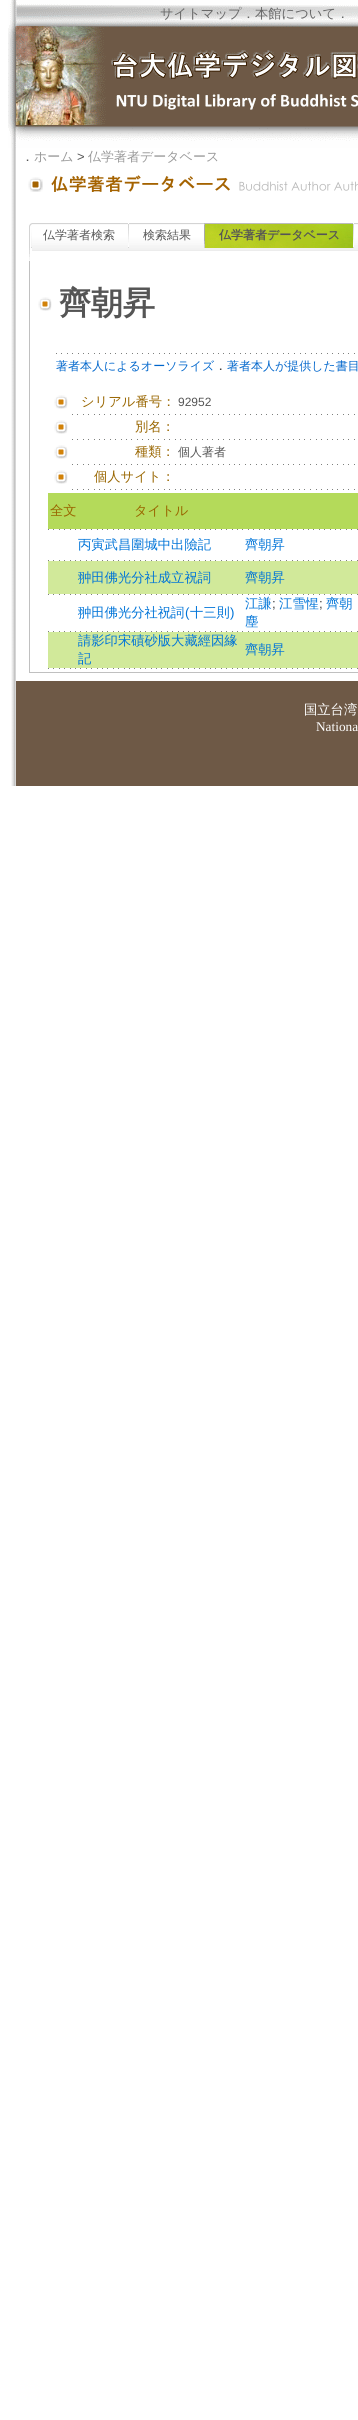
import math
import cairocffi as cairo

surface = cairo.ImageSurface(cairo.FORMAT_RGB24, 358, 2420)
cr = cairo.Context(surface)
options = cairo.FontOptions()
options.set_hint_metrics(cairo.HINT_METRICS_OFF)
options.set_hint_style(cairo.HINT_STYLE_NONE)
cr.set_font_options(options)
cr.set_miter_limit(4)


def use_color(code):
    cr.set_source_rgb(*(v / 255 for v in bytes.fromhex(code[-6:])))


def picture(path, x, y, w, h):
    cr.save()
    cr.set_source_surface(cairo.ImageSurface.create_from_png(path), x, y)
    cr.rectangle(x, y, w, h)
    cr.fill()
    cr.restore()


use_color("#ffffff")
cr.paint()
picture("img1.png", 8, 0, 350, 148)
cr.new_path()
cr.move_to(160.5, 19.5)
cr.line_to(242, 19.5)
use_color("#ffffff")
cr.set_line_width(1)
cr.set_dash([1, 1])
cr.stroke()
cr.select_font_face("WenQuanYi Zen Hei Medium")
cr.set_font_size(13.3)
use_color("#676767")
cr.move_to(160, 18)
cr.show_text("サイトマップ．本館について．")
picture("img2.png", 11, 148, 5, 533)
cr.set_font_size(13)
use_color("#555555")
cr.move_to(21, 161)
cr.show_text("．")
use_color("#999999")
cr.move_to(34, 161)
cr.show_text("ホーム")
cr.select_font_face("Liberation Sans")
use_color("#555555")
cr.move_to(77, 161)
cr.show_text(">")
cr.select_font_face("WenQuanYi Zen Hei Medium")
use_color("#999999")
cr.move_to(88, 161)
cr.show_text("仏学著者データベース")
picture("img3.png", 28, 175, 330, 17)
picture("img4.png", 32, 223, 326, 28)
picture("img5.png", 29, 223, 3, 38)
picture("img6.png", 128, 223, 1, 25)
cr.set_font_size(12)
use_color("#555555")
cr.move_to(43, 239)
cr.show_text("仏学著者検索")
cr.move_to(143, 239)
cr.show_text("検索結果")
picture("img7.png", 204, 223, 149, 25)
picture("img6.png", 353, 223, 1, 25)
cr.select_font_face("WenQuanYi Zen Hei", cairo.FONT_SLANT_NORMAL, cairo.FONT_WEIGHT_BOLD)
cr.move_to(219, 239)
cr.show_text("仏学著者データベース")
use_color("#c0c0c0")
cr.rectangle(29, 672, 329, 1)
cr.fill()
cr.rectangle(29, 261, 1, 412)
cr.fill()
picture("img8.png", 38, 297, 14, 14)
cr.set_font_size(32)
use_color("#555555")
cr.move_to(59, 314)
cr.show_text("齊朝昇")
picture("img9.png", 56, 353, 299, 1)
cr.select_font_face("WenQuanYi Zen Hei Medium")
cr.set_font_size(12)
use_color("#0066cc")
cr.move_to(56, 370)
cr.show_text("著者本人によるオーソライズ")
cr.set_font_size(13.3)
use_color("#444444")
cr.move_to(214, 370)
cr.show_text("．")
cr.set_font_size(12)
use_color("#0066cc")
cr.move_to(227, 370)
cr.show_text("著者本人が提供した書目")
picture("img8.png", 54, 395, 14, 14)
cr.set_font_size(13.3)
use_color("#996600")
cr.move_to(81, 406)
cr.show_text("シリアル番号：")
cr.select_font_face("Liberation Sans")
cr.set_font_size(12)
use_color("#555555")
cr.move_to(178, 406)
cr.show_text("92952")
picture("img10.png", 72, 414, 283, 1)
picture("img8.png", 54, 420, 14, 14)
cr.select_font_face("WenQuanYi Zen Hei Medium")
cr.set_font_size(13.3)
use_color("#996600")
cr.move_to(135, 431)
cr.show_text("別名：")
picture("img10.png", 72, 439, 283, 1)
picture("img8.png", 54, 445, 14, 14)
cr.move_to(135, 456)
cr.show_text("種類：")
cr.set_font_size(12)
use_color("#555555")
cr.move_to(178, 456)
cr.show_text("個人著者")
picture("img10.png", 72, 464, 283, 1)
picture("img8.png", 54, 470, 14, 14)
cr.set_font_size(13.3)
use_color("#996600")
cr.move_to(94, 481)
cr.show_text("個人サイト：")
picture("img10.png", 72, 489, 283, 1)
use_color("#b4da5a")
cr.rectangle(48, 493, 310, 36)
cr.fill()
use_color("#996600")
cr.move_to(50, 515)
cr.show_text("全文")
cr.move_to(134, 515)
cr.show_text("タイトル")
picture("img11.png", 48, 529, 310, 1)
use_color("#0074d8")
cr.move_to(78, 549)
cr.show_text("丙寅武昌圍城中出險記")
cr.move_to(245, 549)
cr.show_text("齊朝昇")
picture("img11.png", 48, 560, 310, 1)
use_color("#d1e99a")
cr.rectangle(48, 561, 310, 33)
cr.fill()
use_color("#0074d8")
cr.move_to(78, 582)
cr.show_text("翀田佛光分社成立祝詞")
cr.move_to(245, 582)
cr.show_text("齊朝昇")
picture("img11.png", 48, 594, 310, 1)
cr.move_to(78, 617)
cr.show_text("翀田佛光分社祝詞")
cr.select_font_face("Liberation Sans")
cr.move_to(185, 617)
cr.show_text("(")
cr.select_font_face("WenQuanYi Zen Hei Medium")
cr.move_to(190, 617)
cr.show_text("十三則")
cr.select_font_face("Liberation Sans")
cr.move_to(230, 617)
cr.show_text(")")
cr.select_font_face("WenQuanYi Zen Hei Medium")
cr.move_to(245, 608)
cr.show_text("江謙")
cr.select_font_face("Liberation Sans")
use_color("#444444")
cr.move_to(272, 608)
cr.show_text(";")
cr.select_font_face("WenQuanYi Zen Hei Medium")
use_color("#0074d8")
cr.move_to(279, 608)
cr.show_text("江雪惺")
cr.select_font_face("Liberation Sans")
use_color("#444444")
cr.move_to(319, 608)
cr.show_text(";")
cr.select_font_face("WenQuanYi Zen Hei Medium")
use_color("#0074d8")
cr.move_to(326, 608)
cr.show_text("齊朝")
cr.move_to(245, 626)
cr.show_text("塵")
picture("img11.png", 48, 631, 310, 1)
use_color("#d1e99a")
cr.rectangle(48, 632, 310, 36)
cr.fill()
use_color("#0074d8")
cr.move_to(78, 645)
cr.show_text("請影印宋磧砂版大藏經因緣")
cr.move_to(78, 663)
cr.show_text("記")
cr.move_to(245, 654)
cr.show_text("齊朝昇")
picture("img11.png", 48, 668, 310, 1)
picture("img12.png", 11, 681, 347, 105)
use_color("#ffffff")
cr.move_to(304, 714)
cr.show_text("国立台湾")
cr.select_font_face("Liberation Serif")
cr.move_to(316, 731)
cr.show_text("Nationa")
surface.write_to_png("result.png")
